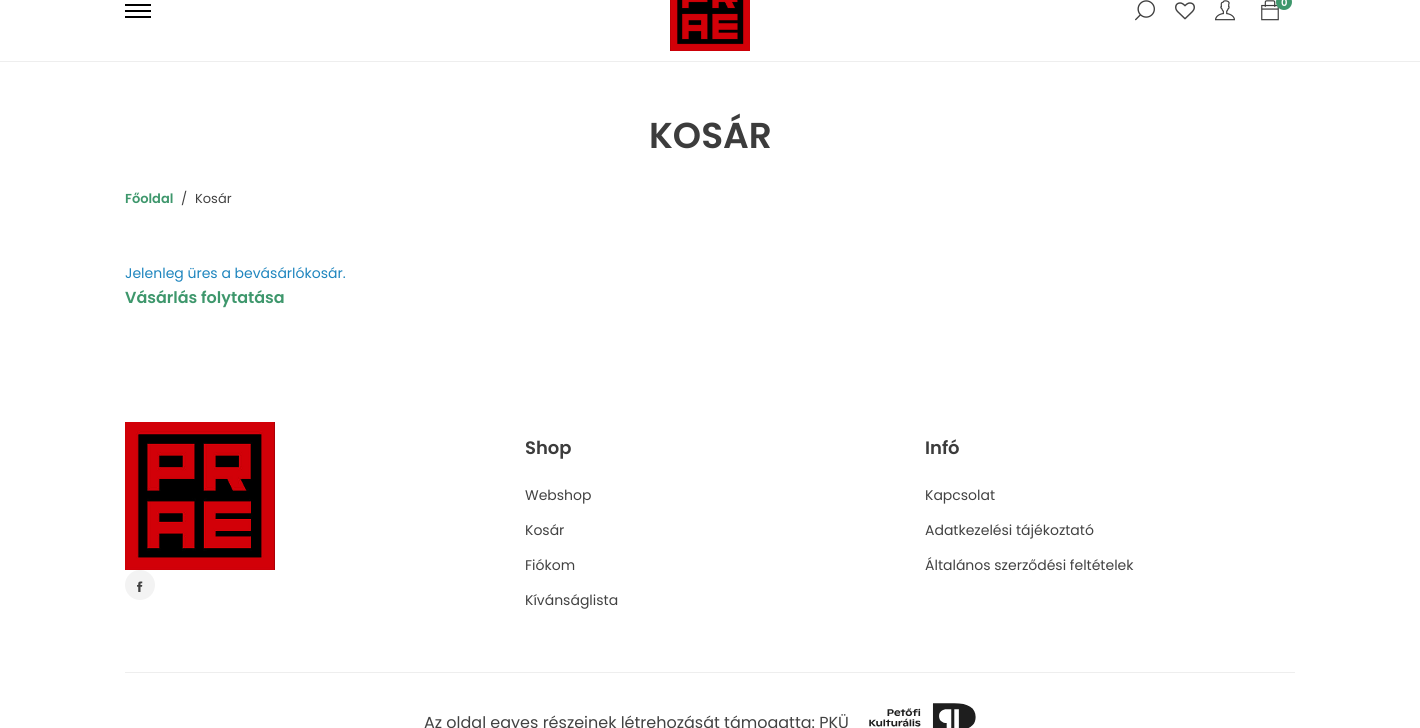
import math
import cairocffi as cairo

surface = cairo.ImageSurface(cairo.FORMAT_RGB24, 1420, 728)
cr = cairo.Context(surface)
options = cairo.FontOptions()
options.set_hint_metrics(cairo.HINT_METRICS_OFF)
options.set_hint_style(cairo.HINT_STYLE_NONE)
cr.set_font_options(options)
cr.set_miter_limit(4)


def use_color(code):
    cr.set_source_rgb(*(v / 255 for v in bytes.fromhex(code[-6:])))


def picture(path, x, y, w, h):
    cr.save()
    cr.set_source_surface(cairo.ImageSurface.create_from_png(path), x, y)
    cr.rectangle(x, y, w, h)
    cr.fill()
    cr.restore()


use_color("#ffffff")
cr.paint()
use_color("#eeeeee")
cr.rectangle(0, 61, 1420, 1)
cr.fill()
picture("img1.png", 670, 0, 80, 51)
picture("img2.png", 1135, 0, 20, 21)
picture("img3.png", 1175, 2, 20, 18)
picture("img4.png", 1215, 0, 20, 21)
picture("img5.png", 1261, 0, 18, 21)
use_color("#3e976c")
cr.arc(1284, 2, 8, 0, 2 * math.pi)
cr.fill()
cr.select_font_face("Poppins SemiBold")
cr.set_font_size(10)
use_color("#ffffff")
cr.move_to(1281, 6)
cr.show_text("0")
use_color("#000000")
cr.rectangle(125, 10, 26, 2)
cr.fill()
cr.rectangle(125, 4, 26, 2)
cr.fill()
cr.rectangle(125, 16, 26, 2)
cr.fill()
cr.set_font_size(36)
use_color("#3c3c3c")
cr.move_to(649, 148)
cr.show_text("KOSÁR")
cr.set_font_size(13)
use_color("#3e976c")
cr.move_to(125, 203)
cr.show_text("Főoldal")
cr.select_font_face("Poppins")
use_color("#424242")
cr.move_to(181, 203)
cr.show_text("/")
cr.move_to(195, 203)
cr.show_text("Kosár")
cr.set_font_size(14)
use_color("#1e85be")
cr.move_to(125, 278)
cr.show_text("Jelenleg üres a bevásárlókosár.")
cr.select_font_face("Poppins SemiBold")
cr.set_font_size(16)
use_color("#3e976c")
cr.move_to(125, 303)
cr.show_text("Vásárlás folytatása")
picture("img6.png", 125, 422, 150, 148)
use_color("#f3f3f3")
cr.arc(140, 585, 15, 0, 2 * math.pi)
cr.fill()
picture("img7.png", 137, 581, 6, 11)
cr.set_font_size(18)
use_color("#3c3c3c")
cr.move_to(525, 454)
cr.show_text("Shop")
cr.select_font_face("Poppins")
cr.set_font_size(14)
use_color("#424242")
cr.move_to(525, 500)
cr.show_text("Webshop")
cr.move_to(525, 535)
cr.show_text("Kosár")
cr.move_to(525, 570)
cr.show_text("Fiókom")
cr.move_to(525, 605)
cr.show_text("Kívánságlista")
cr.select_font_face("Poppins SemiBold")
cr.set_font_size(18)
use_color("#3c3c3c")
cr.move_to(925, 454)
cr.show_text("Infó")
cr.select_font_face("Poppins")
cr.set_font_size(14)
use_color("#424242")
cr.move_to(925, 500)
cr.show_text("Kapcsolat")
cr.move_to(925, 535)
cr.show_text("Adatkezelési tájékoztató")
cr.move_to(925, 570)
cr.show_text("Általános szerződési feltételek")
use_color("#eeeeee")
cr.rectangle(125, 672, 1170, 1)
cr.fill()
cr.set_font_size(16)
use_color("#424242")
cr.move_to(424, 728)
cr.show_text("Az oldal egyes részeinek létrehozását támogatta: PKÜ")
picture("img8.png", 869, 703, 107, 25)
surface.write_to_png("result.png")
